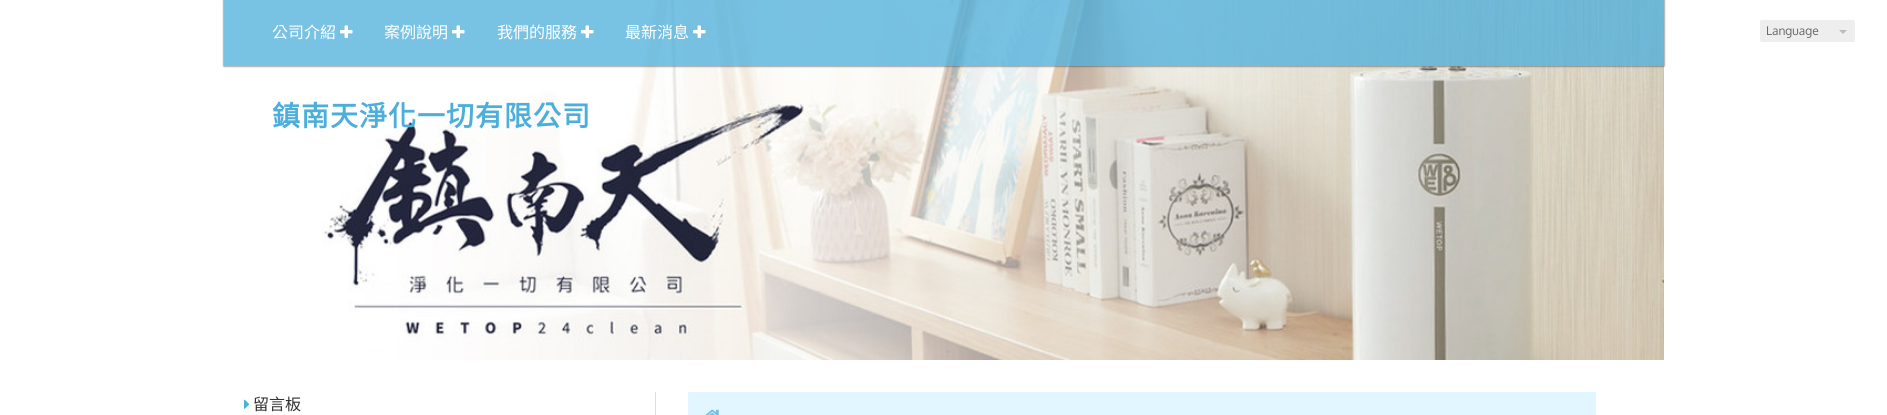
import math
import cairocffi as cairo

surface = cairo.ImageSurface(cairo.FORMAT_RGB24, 1887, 415)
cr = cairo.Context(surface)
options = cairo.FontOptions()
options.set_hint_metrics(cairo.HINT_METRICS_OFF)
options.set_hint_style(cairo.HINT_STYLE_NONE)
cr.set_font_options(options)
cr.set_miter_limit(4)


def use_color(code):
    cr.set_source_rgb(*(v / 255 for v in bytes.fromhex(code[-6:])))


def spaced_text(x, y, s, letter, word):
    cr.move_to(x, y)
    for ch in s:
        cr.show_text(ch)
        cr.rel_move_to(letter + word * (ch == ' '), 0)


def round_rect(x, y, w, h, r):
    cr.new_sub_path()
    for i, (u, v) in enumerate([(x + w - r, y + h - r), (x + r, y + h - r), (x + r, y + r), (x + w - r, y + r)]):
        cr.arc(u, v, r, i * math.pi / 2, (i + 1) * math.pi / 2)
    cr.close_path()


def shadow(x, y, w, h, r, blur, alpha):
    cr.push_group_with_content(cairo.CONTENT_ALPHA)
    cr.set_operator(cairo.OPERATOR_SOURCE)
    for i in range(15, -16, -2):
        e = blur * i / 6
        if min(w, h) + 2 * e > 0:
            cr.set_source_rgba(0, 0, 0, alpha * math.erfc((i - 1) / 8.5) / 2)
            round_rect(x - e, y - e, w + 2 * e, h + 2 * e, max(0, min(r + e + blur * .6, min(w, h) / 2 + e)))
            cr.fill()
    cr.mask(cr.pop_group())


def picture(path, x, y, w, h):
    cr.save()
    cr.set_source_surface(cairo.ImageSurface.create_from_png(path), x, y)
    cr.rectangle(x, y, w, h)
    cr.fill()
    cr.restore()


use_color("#ffffff")
cr.paint()
picture("img1.png", 322, 0, 1342, 360)
cr.save()
cr.set_fill_rule(cairo.FILL_RULE_EVEN_ODD)
cr.new_path()
cr.move_to(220, 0)
cr.line_to(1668, 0)
cr.line_to(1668, 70)
cr.line_to(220, 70)
cr.close_path()
cr.move_to(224, 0)
cr.line_to(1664, 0)
cr.line_to(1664, 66)
cr.line_to(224, 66)
cr.close_path()
cr.clip()
use_color("#333333")
shadow(224, 0, 1440, 66, 0, 1, 1)
cr.restore()
cr.set_source_rgba(0.294, 0.682, 0.859, 0.75)
cr.rectangle(224, 0, 1440, 66)
cr.fill()
cr.select_font_face("Noto Sans TC")
cr.set_font_size(16)
use_color("#ffffff")
cr.move_to(272, 38)
cr.show_text("公司介紹")
picture("img2.png", 340, 25, 13, 13)
cr.move_to(384, 38)
cr.show_text("案例說明")
picture("img2.png", 452, 25, 13, 13)
cr.move_to(497, 38)
cr.show_text("我們的服務")
picture("img2.png", 581, 25, 13, 13)
cr.move_to(625, 38)
cr.show_text("最新消息")
picture("img3.png", 693, 25, 13, 13)
use_color("#eeeeee")
round_rect(1760, 20, 95, 22, 2)
cr.fill()
cr.select_font_face("Oxygen")
cr.set_font_size(12)
use_color("#666666")
cr.move_to(1766, 35)
cr.show_text("Language")
use_color("#bbbbbb")
cr.new_path()
cr.move_to(1839, 30)
cr.line_to(1847, 30)
cr.line_to(1843, 34)
cr.close_path()
cr.fill()
cr.select_font_face("Noto Sans CJK TC", cairo.FONT_SLANT_NORMAL, cairo.FONT_WEIGHT_BOLD)
cr.set_font_size(28)
use_color("#4baedb")
spaced_text(272, 126, "鎮南天淨化一切有限公司", 1, 0)
use_color("#dddddd")
cr.rectangle(655, 392, 1, 23)
cr.fill()
picture("img4.png", 244, 399, 6, 10)
cr.select_font_face("Noto Sans TC")
cr.set_font_size(16)
use_color("#333333")
cr.move_to(253, 410)
cr.show_text("留言板")
use_color("#e2f6ff")
cr.rectangle(688, 392, 908, 23)
cr.fill()
picture("img5.png", 705, 409, 14, 6)
surface.write_to_png("result.png")
